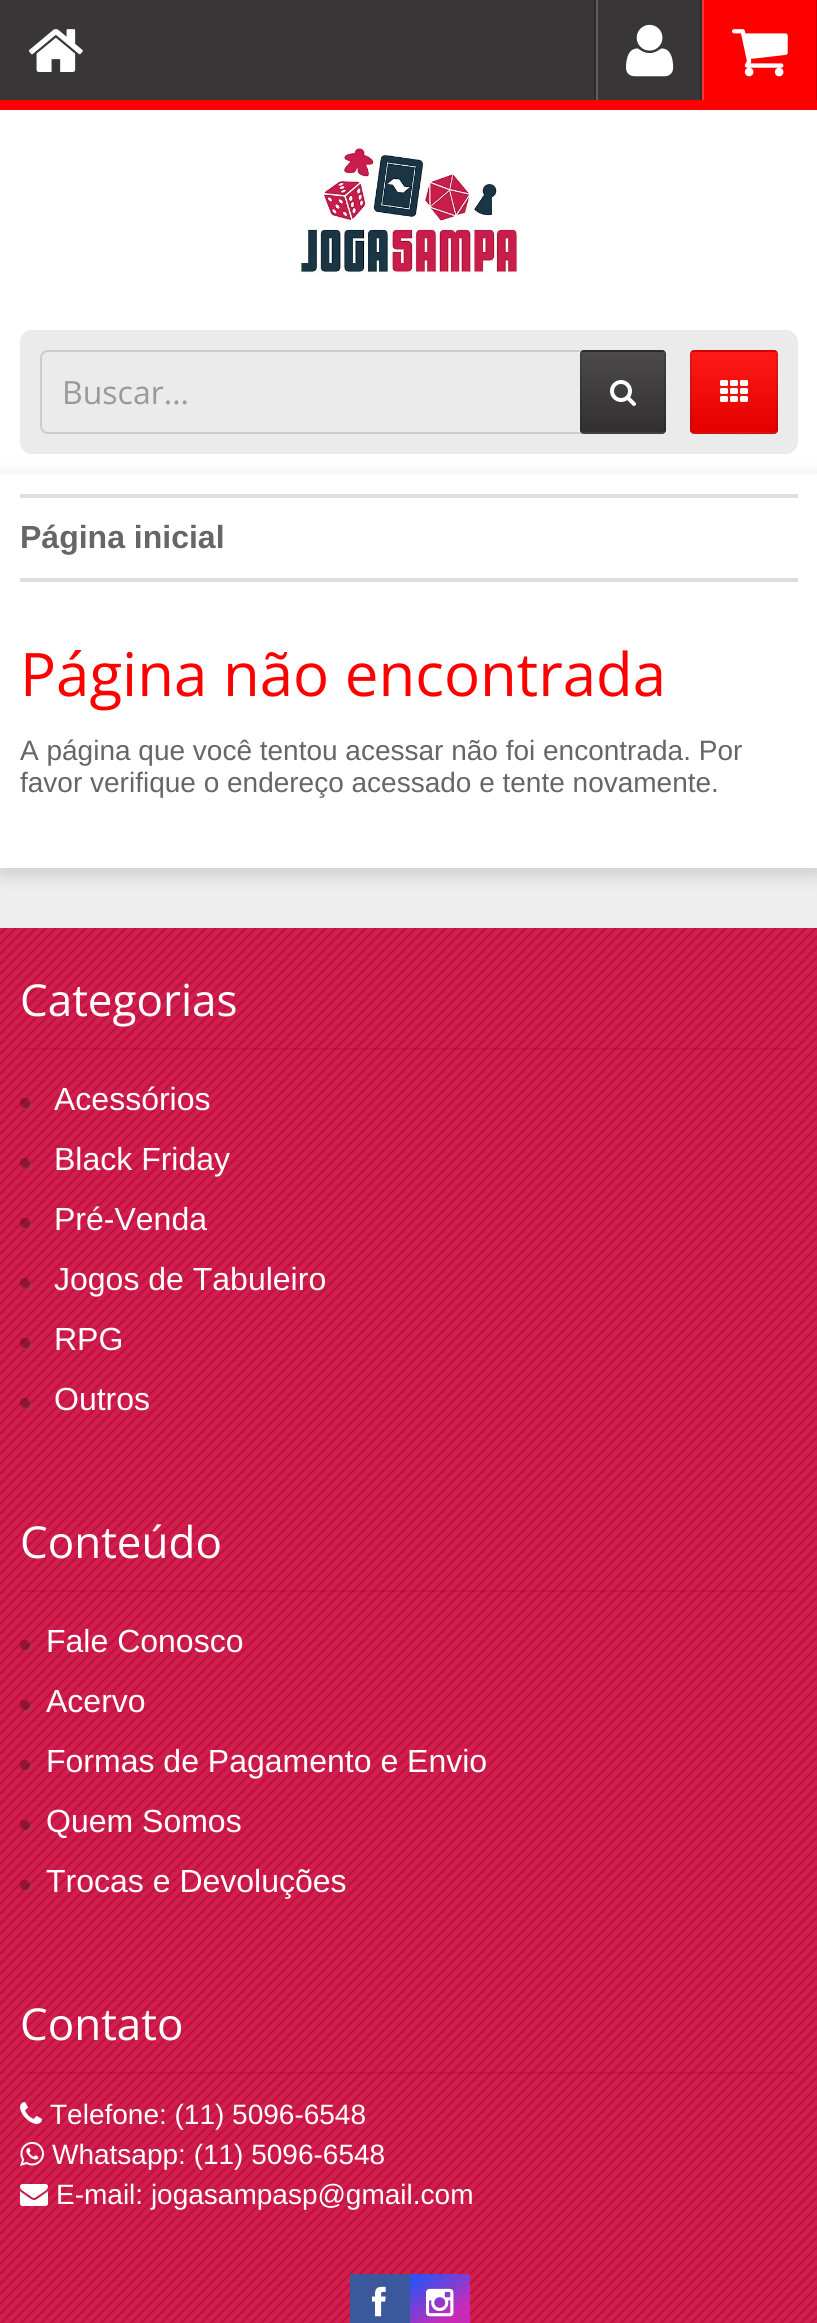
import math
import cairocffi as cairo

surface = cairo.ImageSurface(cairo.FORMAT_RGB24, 817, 2323)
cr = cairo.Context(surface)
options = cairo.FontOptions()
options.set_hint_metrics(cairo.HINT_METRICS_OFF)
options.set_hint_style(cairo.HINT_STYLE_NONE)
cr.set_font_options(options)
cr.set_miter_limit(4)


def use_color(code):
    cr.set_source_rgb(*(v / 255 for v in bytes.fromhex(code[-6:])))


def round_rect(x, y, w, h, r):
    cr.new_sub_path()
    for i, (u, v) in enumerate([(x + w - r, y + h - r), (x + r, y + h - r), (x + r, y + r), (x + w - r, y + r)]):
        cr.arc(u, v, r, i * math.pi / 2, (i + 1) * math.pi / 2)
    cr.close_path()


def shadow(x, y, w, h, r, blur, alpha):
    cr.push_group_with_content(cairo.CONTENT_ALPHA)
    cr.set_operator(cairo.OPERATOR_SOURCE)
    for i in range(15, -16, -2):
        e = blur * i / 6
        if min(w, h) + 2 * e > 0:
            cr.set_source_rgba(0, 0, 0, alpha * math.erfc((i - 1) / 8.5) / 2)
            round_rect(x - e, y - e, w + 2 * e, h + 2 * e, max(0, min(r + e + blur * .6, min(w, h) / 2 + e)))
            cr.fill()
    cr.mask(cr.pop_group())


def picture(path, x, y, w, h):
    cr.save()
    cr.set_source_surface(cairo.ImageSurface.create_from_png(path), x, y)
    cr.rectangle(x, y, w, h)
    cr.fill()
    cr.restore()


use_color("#eeeeee")
cr.paint()
use_color("#383636")
cr.rectangle(0, 0, 700, 100)
cr.fill()
use_color("#ff0000")
cr.rectangle(0, 100, 817, 10)
cr.fill()
picture("img1.png", 28, 29, 55, 43)
use_color("#2d2b2b")
cr.rectangle(594, 0, 2, 100)
cr.fill()
cr.rectangle(700, 0, 2, 100)
cr.fill()
use_color("#605e5e")
cr.rectangle(596, 0, 2, 100)
cr.fill()
picture("img2.png", 626, 24, 48, 53)
use_color("#ff0000")
cr.rectangle(704, 0, 112, 100)
cr.fill()
use_color("#cc0000")
cr.rectangle(816, 0, 1, 100)
cr.fill()
use_color("#ff3333")
cr.rectangle(702, 0, 2, 100)
cr.fill()
picture("img3.png", 732, 29, 56, 48)
use_color("#ffffff")
cr.rectangle(0, 110, 817, 364)
cr.fill()
picture("img4.png", 300, 148, 218, 127)
use_color("#000000")
shadow(0, 480, 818, 394, 0, 10, 0.15)
use_color("#ebebeb")
round_rect(20, 330, 778, 124, 12)
cr.fill()
round_rect(41, 351, 604, 82, 7)
use_color("#cccccc")
cr.stroke()
cr.select_font_face("Open Sans")
cr.set_font_size(32)
use_color("#999999")
cr.move_to(62, 404)
cr.show_text("Buscar...")
use_color("#383636")
round_rect(580, 350, 86, 84, 4)
cr.fill()
cr.save()
round_rect(580, 350, 86, 84, 4)
cr.clip()
gradient = cairo.LinearGradient(623, 272, 623, 352)
gradient.add_color_stop_rgba(0, 1, 1, 1, 0.1)
gradient.add_color_stop_rgba(1, 0, 0, 0, 0.1)
cr.set_source(gradient)
cr.rectangle(580, 350, 86, 2)
cr.fill()
cr.restore()
gradient = cairo.LinearGradient(623, 352, 623, 432)
gradient.add_color_stop_rgba(0, 1, 1, 1, 0.1)
gradient.add_color_stop_rgba(1, 0, 0, 0, 0.1)
cr.set_source(gradient)
cr.rectangle(580, 352, 86, 80)
cr.fill()
cr.save()
round_rect(580, 350, 86, 84, 4)
cr.clip()
gradient = cairo.LinearGradient(623, 432, 623, 512)
gradient.add_color_stop_rgba(0, 1, 1, 1, 0.1)
gradient.add_color_stop_rgba(1, 0, 0, 0, 0.1)
cr.set_source(gradient)
cr.rectangle(580, 432, 86, 2)
cr.fill()
cr.restore()
round_rect(581, 351, 84, 82, 3)
cr.set_source_rgba(0, 0, 0, 0.13)
cr.stroke()
picture("img5.png", 610, 380, 26, 26)
use_color("#ff0000")
round_rect(690, 350, 88, 84, 4)
cr.fill()
cr.save()
round_rect(690, 350, 88, 84, 4)
cr.clip()
gradient = cairo.LinearGradient(734, 272, 734, 352)
gradient.add_color_stop_rgba(0, 1, 1, 1, 0.1)
gradient.add_color_stop_rgba(1, 0, 0, 0, 0.1)
cr.set_source(gradient)
cr.rectangle(690, 350, 88, 2)
cr.fill()
cr.restore()
gradient = cairo.LinearGradient(734, 352, 734, 432)
gradient.add_color_stop_rgba(0, 1, 1, 1, 0.1)
gradient.add_color_stop_rgba(1, 0, 0, 0, 0.1)
cr.set_source(gradient)
cr.rectangle(690, 352, 88, 80)
cr.fill()
cr.save()
round_rect(690, 350, 88, 84, 4)
cr.clip()
gradient = cairo.LinearGradient(734, 432, 734, 512)
gradient.add_color_stop_rgba(0, 1, 1, 1, 0.1)
gradient.add_color_stop_rgba(1, 0, 0, 0, 0.1)
cr.set_source(gradient)
cr.rectangle(690, 432, 88, 2)
cr.fill()
cr.restore()
cr.new_path()
cr.move_to(776, 432)
cr.line_to(776, 432.5)
cr.curve_to(774, 434, 715, 433, 707.5, 433)
cr.line_to(694, 433)
cr.line_to(692, 432)
cr.set_source_rgba(0, 0, 0, 0.2)
cr.stroke()
cr.new_path()
cr.move_to(692, 432)
cr.line_to(691, 430)
cr.line_to(691, 366.5)
cr.curve_to(691, 348, 688, 351, 707.5, 351)
cr.line_to(760.5, 351)
cr.curve_to(780, 351, 777, 348, 777, 366.5)
cr.line_to(777, 430)
cr.line_to(776, 432)
cr.set_source_rgba(0, 0, 0, 0.1)
cr.stroke()
picture("img6.png", 720, 380, 28, 22)
use_color("#ffffff")
cr.rectangle(0, 474, 817, 394)
cr.fill()
use_color("#dedede")
cr.rectangle(20, 494, 778, 4)
cr.fill()
cr.rectangle(20, 578, 778, 4)
cr.fill()
cr.select_font_face("Liberation Sans", cairo.FONT_SLANT_NORMAL, cairo.FONT_WEIGHT_BOLD)
use_color("#666666")
cr.move_to(20, 548)
cr.show_text("Página inicial")
cr.select_font_face("Open Sans")
cr.set_font_size(60)
use_color("#ff0000")
cr.move_to(20, 696)
cr.show_text("Página não encontrada")
cr.select_font_face("Liberation Sans")
cr.set_font_size(28)
use_color("#666666")
cr.move_to(20, 760)
cr.show_text("A página que você tentou acessar não foi encontrada. Por")
cr.move_to(20, 792)
cr.show_text("favor verifique o endereço acessado e tente novamente.")
use_color("#cc073c")
cr.rectangle(0, 928, 817, 1395)
cr.fill()
picture("img7.png", 0, 928, 817, 1395)
cr.set_source_rgba(0, 0, 0, 0.1)
cr.rectangle(20, 1048, 778, 2)
cr.fill()
cr.select_font_face("Open Sans")
cr.set_font_size(44)
use_color("#ffffff")
cr.move_to(20, 1016)
cr.show_text("Categorias")
picture("img8.png", 20, 1098, 12, 12)
cr.select_font_face("Liberation Sans")
cr.set_font_size(32)
cr.move_to(54, 1110)
cr.show_text("Acessórios")
picture("img8.png", 20, 1158, 12, 12)
cr.move_to(54, 1170)
cr.show_text("Black Friday")
picture("img8.png", 20, 1218, 12, 12)
cr.move_to(54, 1230)
cr.show_text("Pré-Venda")
picture("img8.png", 20, 1278, 12, 12)
cr.move_to(54, 1290)
cr.show_text("Jogos de Tabuleiro")
picture("img8.png", 20, 1338, 12, 12)
cr.move_to(54, 1350)
cr.show_text("RPG")
picture("img9.png", 20, 1398, 12, 12)
cr.move_to(54, 1410)
cr.show_text("Outros")
cr.set_source_rgba(0, 0, 0, 0.1)
cr.rectangle(20, 1590, 778, 2)
cr.fill()
cr.select_font_face("Open Sans")
cr.set_font_size(44)
use_color("#ffffff")
cr.move_to(20, 1558)
cr.show_text("Conteúdo")
picture("img10.png", 20, 1640, 12, 12)
cr.select_font_face("Liberation Sans")
cr.set_font_size(32)
cr.move_to(46, 1652)
cr.show_text("Fale Conosco")
picture("img10.png", 20, 1700, 12, 12)
cr.move_to(46, 1712)
cr.show_text("Acervo")
picture("img10.png", 20, 1760, 12, 12)
cr.move_to(46, 1772)
cr.show_text("Formas de Pagamento e Envio")
picture("img10.png", 20, 1820, 12, 12)
cr.move_to(46, 1832)
cr.show_text("Quem Somos")
picture("img10.png", 20, 1880, 12, 12)
cr.move_to(46, 1892)
cr.show_text("Trocas e Devoluções")
cr.set_source_rgba(0, 0, 0, 0.1)
cr.rectangle(20, 2072, 778, 2)
cr.fill()
cr.select_font_face("Open Sans")
cr.set_font_size(44)
use_color("#ffffff")
cr.move_to(20, 2040)
cr.show_text("Contato")
picture("img11.png", 20, 2102, 22, 22)
cr.select_font_face("Liberation Sans")
cr.set_font_size(28)
cr.move_to(50, 2124)
cr.show_text("Telefone: (11) 5096-6548")
picture("img12.png", 20, 2141, 24, 25)
cr.move_to(52, 2164)
cr.show_text("Whatsapp: (11) 5096-6548")
picture("img13.png", 20, 2184, 28, 22)
cr.move_to(56, 2204)
cr.show_text("E-mail: jogasampasp@gmail.com")
use_color("#3a589b")
cr.rectangle(350, 2274, 60, 49)
cr.fill()
picture("img14.png", 372, 2286, 14, 31)
gradient = cairo.LinearGradient(416, 2270, 464, 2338)
gradient.add_color_stop_rgba(0.1, 0.188, 0.318, 0.945, 1)
gradient.add_color_stop_rgba(0.7, 0.788, 0.169, 0.718, 1)
cr.set_source(gradient)
cr.rectangle(410, 2274, 60, 49)
cr.fill()
picture("img15.png", 426, 2288, 28, 29)
surface.write_to_png("result.png")
